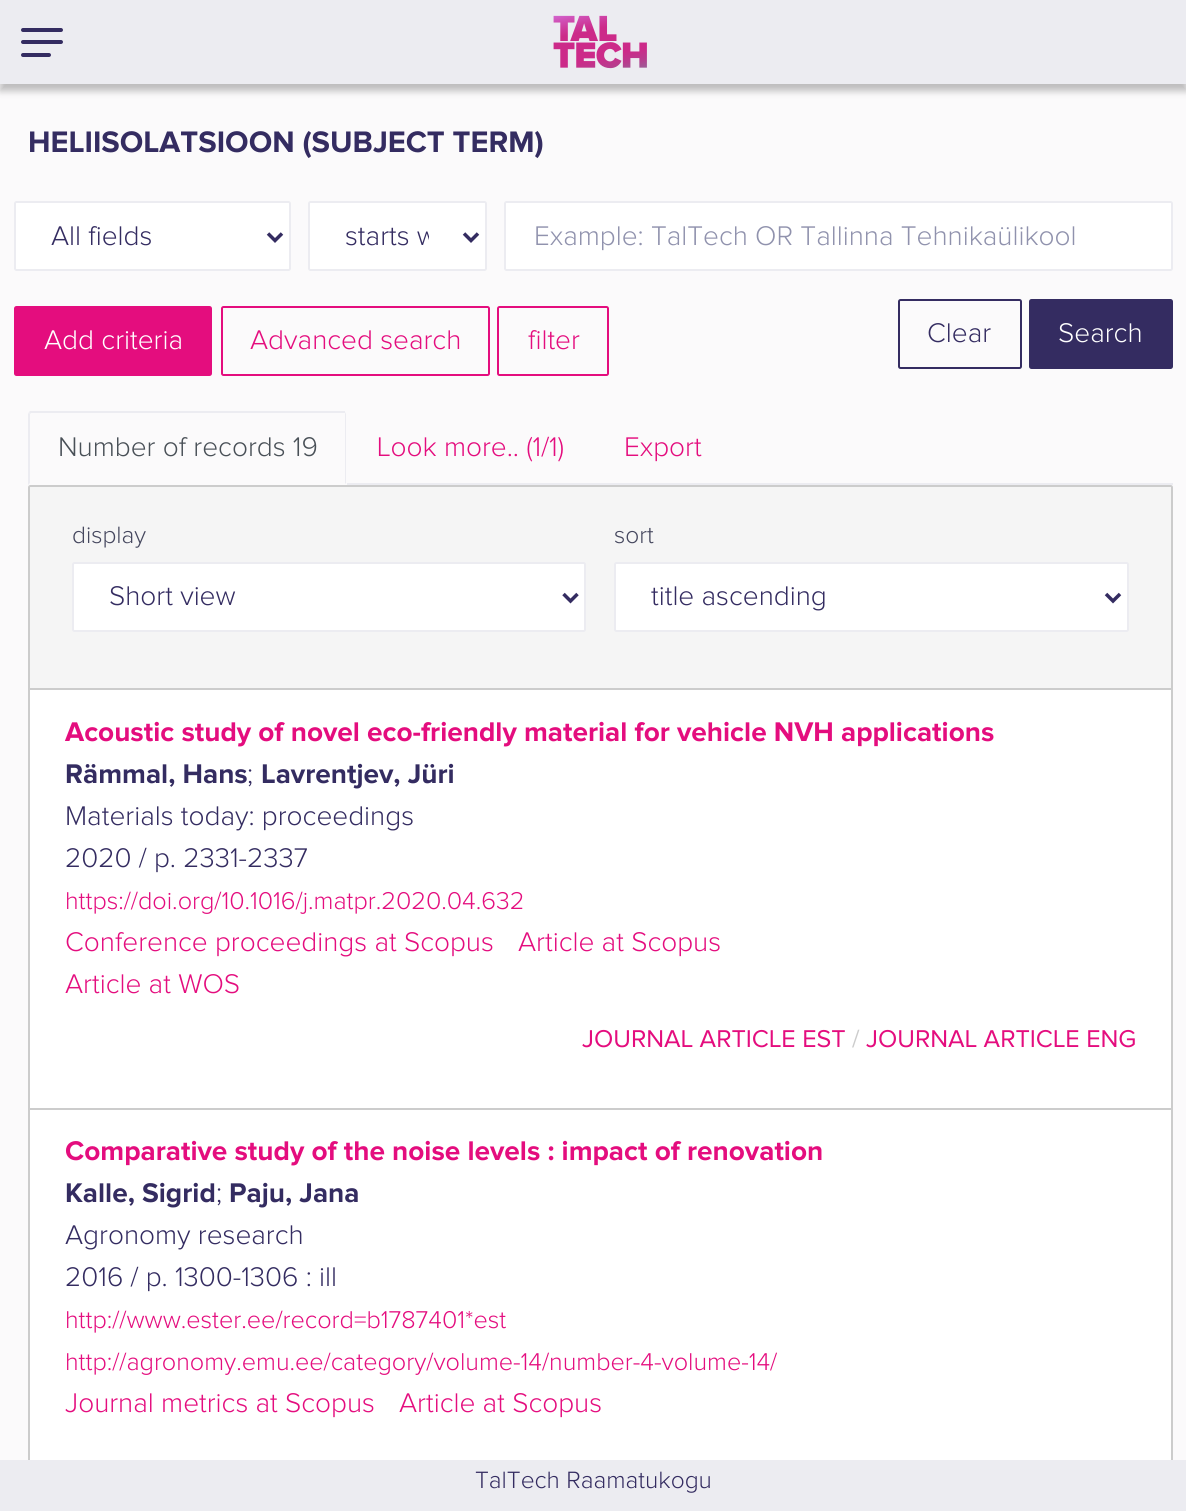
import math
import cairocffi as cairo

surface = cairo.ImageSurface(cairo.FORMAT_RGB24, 1186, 1511)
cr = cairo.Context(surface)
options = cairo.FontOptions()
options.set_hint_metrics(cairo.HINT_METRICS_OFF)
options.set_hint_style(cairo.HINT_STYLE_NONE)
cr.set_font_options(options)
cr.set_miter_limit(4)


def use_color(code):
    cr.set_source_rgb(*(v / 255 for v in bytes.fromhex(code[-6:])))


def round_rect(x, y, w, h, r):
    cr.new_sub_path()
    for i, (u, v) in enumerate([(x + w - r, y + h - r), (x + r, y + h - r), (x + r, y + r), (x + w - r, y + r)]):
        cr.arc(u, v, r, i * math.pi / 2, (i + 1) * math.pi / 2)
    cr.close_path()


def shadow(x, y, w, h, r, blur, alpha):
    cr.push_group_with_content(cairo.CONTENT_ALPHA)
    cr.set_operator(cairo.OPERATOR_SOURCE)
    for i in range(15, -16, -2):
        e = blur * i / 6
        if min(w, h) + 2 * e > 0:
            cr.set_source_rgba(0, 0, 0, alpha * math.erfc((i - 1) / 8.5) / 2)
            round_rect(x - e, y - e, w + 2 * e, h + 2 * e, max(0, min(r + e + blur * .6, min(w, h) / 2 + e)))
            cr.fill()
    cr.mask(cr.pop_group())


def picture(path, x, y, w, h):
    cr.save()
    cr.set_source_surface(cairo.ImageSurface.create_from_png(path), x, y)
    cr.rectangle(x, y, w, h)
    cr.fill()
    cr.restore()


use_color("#fbfafb")
cr.paint()
use_color("#000000")
shadow(0, 7, 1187, 84, 0, 3.5, 0.25)
use_color("#ececf1")
cr.rectangle(0, 0, 1186, 84)
cr.fill()
use_color("#342c61")
round_rect(21, 40, 42, 4, 2)
cr.fill()
round_rect(21, 28, 42, 4, 2)
cr.fill()
round_rect(21, 53, 30, 4, 2)
cr.fill()
picture("img1.png", 553, 15, 94, 54)
cr.select_font_face("Proxima Nova", cairo.FONT_SLANT_NORMAL, cairo.FONT_WEIGHT_BOLD)
cr.set_font_size(30.75)
cr.move_to(28, 152)
cr.show_text("HELIISOLATSIOON (SUBJECT TERM)")
use_color("#ffffff")
round_rect(15, 202, 275, 68, 1.5)
cr.fill_preserve()
use_color("#ececf1")
cr.stroke()
cr.new_path()
cr.move_to(268, 233.5)
cr.line_to(275, 240.5)
cr.line_to(282, 233.5)
use_color("#342c61")
cr.set_line_width(3.5)
cr.stroke()
cr.select_font_face("Proxima Nova Light")
cr.set_font_size(28)
cr.move_to(51, 245)
cr.show_text("All fields")
use_color("#ffffff")
round_rect(309, 202, 177, 68, 1.5)
cr.fill_preserve()
use_color("#ececf1")
cr.set_line_width(2)
cr.stroke()
cr.new_path()
cr.move_to(464, 233.5)
cr.line_to(471, 240.5)
cr.line_to(478, 233.5)
use_color("#342c61")
cr.set_line_width(3.5)
cr.stroke()
cr.save()
cr.rectangle(345, 219, 84, 37)
cr.clip()
cr.move_to(345, 245)
cr.show_text("starts w")
cr.restore()
use_color("#ffffff")
round_rect(505, 202, 667, 68, 1.5)
cr.fill_preserve()
use_color("#ececf1")
cr.set_line_width(2)
cr.stroke()
use_color("#9092ad")
cr.move_to(534, 245)
cr.show_text("Example: TalTech OR Tallinna Tehnikaülikool")
use_color("#e40d7e")
round_rect(15, 307, 196, 68, 1.5)
cr.fill_preserve()
cr.stroke()
use_color("#ffffff")
cr.move_to(44, 349)
cr.show_text("Add criteria")
round_rect(222, 307, 267, 68, 1.5)
use_color("#e40d7e")
cr.stroke()
cr.move_to(250, 349)
cr.show_text("Advanced search")
round_rect(498, 307, 110, 68, 1.5)
cr.stroke()
cr.move_to(528, 349)
cr.show_text("filter")
round_rect(899, 300, 122, 68, 1.5)
use_color("#342c61")
cr.stroke()
cr.move_to(927, 342)
cr.show_text("Clear")
round_rect(1030, 300, 142, 68, 1.5)
cr.fill_preserve()
cr.stroke()
use_color("#ffffff")
cr.move_to(1058, 342)
cr.show_text("Search")
use_color("#ececf1")
cr.rectangle(347, 483, 826, 2)
cr.fill()
cr.new_path()
cr.move_to(31, 413)
cr.line_to(30, 414)
cr.line_to(29, 412)
cr.line_to(30, 411)
cr.line_to(345, 411)
cr.line_to(345, 412)
cr.line_to(345, 413)
cr.line_to(344, 413)
cr.close_path()
cr.fill()
cr.new_path()
cr.move_to(345, 412)
cr.line_to(346, 414)
cr.line_to(346, 484)
cr.line_to(345, 483)
cr.line_to(345, 414)
cr.line_to(345, 413)
cr.close_path()
cr.fill()
cr.new_path()
cr.move_to(28, 485)
cr.line_to(30, 483)
cr.line_to(30, 414)
cr.line_to(29, 412)
cr.line_to(28, 414)
cr.close_path()
cr.fill()
use_color("#495057")
cr.move_to(58, 456)
cr.show_text("Number of records 19")
use_color("#e40d7e")
cr.move_to(377, 456)
cr.show_text("Look more.. (1/1)")
cr.move_to(624, 456)
cr.show_text("Export")
use_color("#f5f5f5")
cr.new_path()
cr.move_to(30.5, 486)
cr.line_to(1170.5, 486)
cr.curve_to(1171.5, 486, 1172, 486.5, 1172, 487.5)
cr.line_to(1172, 689)
cr.line_to(29, 689)
cr.line_to(29, 487.5)
cr.curve_to(29, 486.5, 29.5, 486, 30.5, 486)
cr.close_path()
cr.fill_preserve()
use_color("#cccccc")
cr.stroke()
cr.set_font_size(24.5)
use_color("#45475e")
cr.move_to(72, 543)
cr.show_text("display")
use_color("#ffffff")
round_rect(73, 563, 512, 68, 1.5)
cr.fill_preserve()
use_color("#ececf1")
cr.stroke()
cr.new_path()
cr.move_to(563.5, 594)
cr.line_to(570.5, 601)
cr.line_to(577.5, 594)
use_color("#342c61")
cr.set_line_width(3.5)
cr.stroke()
cr.set_font_size(28)
cr.move_to(109, 605)
cr.show_text("Short view")
cr.set_font_size(24.5)
use_color("#45475e")
cr.move_to(614, 543)
cr.show_text("sort")
use_color("#ffffff")
round_rect(615, 563, 513, 68, 1.5)
cr.fill_preserve()
use_color("#ececf1")
cr.set_line_width(2)
cr.stroke()
cr.new_path()
cr.move_to(1106, 594)
cr.line_to(1113, 601)
cr.line_to(1120, 594)
use_color("#342c61")
cr.set_line_width(3.5)
cr.stroke()
cr.set_font_size(28)
cr.move_to(651, 605)
cr.show_text("title ascending")
use_color("#ffffff")
cr.rectangle(30, 690, 1141, 418)
cr.fill()
use_color("#cccccc")
cr.rectangle(1171, 690, 2, 770)
cr.fill()
cr.rectangle(28, 1108, 1145, 2)
cr.fill()
cr.rectangle(28, 690, 2, 770)
cr.fill()
cr.select_font_face("Proxima Nova", cairo.FONT_SLANT_NORMAL, cairo.FONT_WEIGHT_BOLD)
use_color("#e40d7e")
cr.move_to(65, 741)
cr.show_text("Acoustic study of novel eco-friendly material for vehicle NVH applications")
use_color("#342c61")
cr.move_to(65, 783)
cr.show_text("Rämmal, Hans")
cr.select_font_face("Proxima Nova Light")
cr.move_to(247, 783)
cr.show_text(";")
cr.select_font_face("Proxima Nova", cairo.FONT_SLANT_NORMAL, cairo.FONT_WEIGHT_BOLD)
cr.move_to(261, 783)
cr.show_text("Lavrentjev, Jüri")
cr.select_font_face("Proxima Nova Light")
cr.move_to(65, 825)
cr.show_text("Materials today: proceedings")
cr.move_to(65, 867)
cr.show_text("2020 / p. 2331-2337")
cr.set_font_size(25.2)
use_color("#e40d7e")
cr.move_to(65, 909)
cr.show_text("https://doi.org/10.1016/j.matpr.2020.04.632")
cr.set_font_size(28)
cr.move_to(65, 951)
cr.show_text("Conference proceedings at Scopus")
cr.move_to(518, 951)
cr.show_text("Article at Scopus")
cr.move_to(65, 993)
cr.show_text("Article at WOS")
cr.select_font_face("Proxima Nova")
cr.set_font_size(25.2)
cr.move_to(582, 1047)
cr.show_text("JOURNAL ARTICLE EST")
use_color("#cccccc")
cr.move_to(852, 1047)
cr.show_text("/")
use_color("#e40d7e")
cr.move_to(866, 1047)
cr.show_text("JOURNAL ARTICLE ENG")
use_color("#ffffff")
cr.rectangle(30, 1110, 1141, 350)
cr.fill()
cr.select_font_face("Proxima Nova", cairo.FONT_SLANT_NORMAL, cairo.FONT_WEIGHT_BOLD)
cr.set_font_size(28)
use_color("#e40d7e")
cr.move_to(65, 1160)
cr.show_text("Comparative study of the noise levels : impact of renovation")
use_color("#342c61")
cr.move_to(65, 1202)
cr.show_text("Kalle, Sigrid")
cr.select_font_face("Proxima Nova Light")
cr.move_to(216, 1202)
cr.show_text(";")
cr.select_font_face("Proxima Nova", cairo.FONT_SLANT_NORMAL, cairo.FONT_WEIGHT_BOLD)
cr.move_to(229, 1202)
cr.show_text("Paju, Jana")
cr.select_font_face("Proxima Nova Light")
cr.move_to(65, 1244)
cr.show_text("Agronomy research")
cr.move_to(65, 1286)
cr.show_text("2016 / p. 1300-1306 : ill")
cr.set_font_size(25.2)
use_color("#e40d7e")
cr.move_to(65, 1328)
cr.show_text("http://www.ester.ee/record=b1787401*est")
cr.move_to(65, 1370)
cr.show_text("http://agronomy.emu.ee/category/volume-14/number-4-volume-14/")
cr.set_font_size(28)
cr.move_to(65, 1412)
cr.show_text("Journal metrics at Scopus")
cr.move_to(399, 1412)
cr.show_text("Article at Scopus")
use_color("#ececf1")
cr.rectangle(0, 1460, 1186, 51)
cr.fill()
cr.set_font_size(24.5)
use_color("#342c61")
cr.move_to(475, 1488)
cr.show_text("TalTech Raamatukogu")
surface.write_to_png("result.png")
